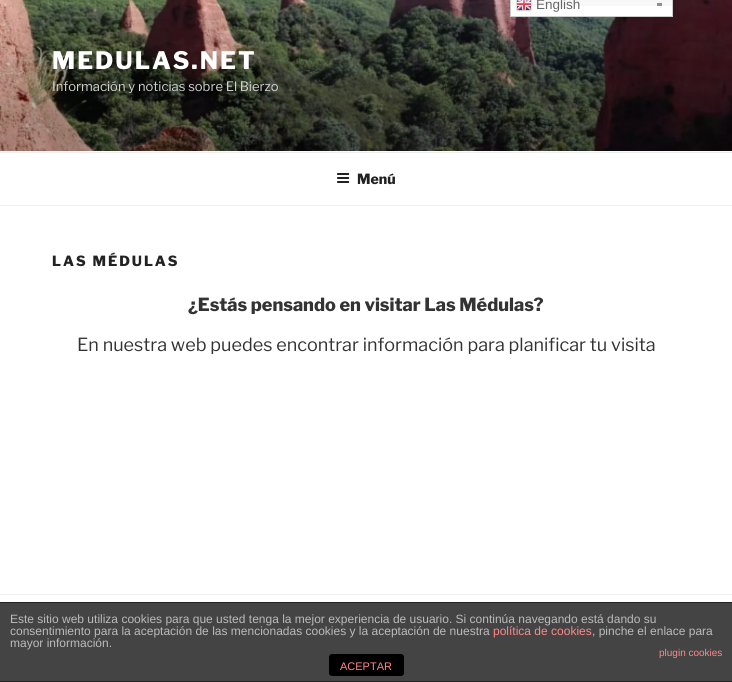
import math
import cairocffi as cairo

surface = cairo.ImageSurface(cairo.FORMAT_RGB24, 732, 682)
cr = cairo.Context(surface)
options = cairo.FontOptions()
options.set_hint_metrics(cairo.HINT_METRICS_OFF)
options.set_hint_style(cairo.HINT_STYLE_NONE)
cr.set_font_options(options)
cr.set_miter_limit(4)


def use_color(code):
    cr.set_source_rgb(*(v / 255 for v in bytes.fromhex(code[-6:])))


def spaced_text(x, y, s, letter, word):
    cr.move_to(x, y)
    for ch in s:
        cr.show_text(ch)
        cr.rel_move_to(letter + word * (ch == ' '), 0)


def round_rect(x, y, w, h, r):
    cr.new_sub_path()
    for i, (u, v) in enumerate([(x + w - r, y + h - r), (x + r, y + h - r), (x + r, y + r), (x + w - r, y + r)]):
        cr.arc(u, v, r, i * math.pi / 2, (i + 1) * math.pi / 2)
    cr.close_path()


def picture(path, x, y, w, h):
    cr.save()
    cr.set_source_surface(cairo.ImageSurface.create_from_png(path), x, y)
    cr.rectangle(x, y, w, h)
    cr.fill()
    cr.restore()


use_color("#ffffff")
cr.paint()
picture("img2.png", 0, 0, 732, 151)
use_color("#ffffff")
cr.rectangle(511, 6, 161, 10)
cr.fill()
use_color("#f8f8f8")
cr.rectangle(510, 0, 163, 6)
cr.fill()
use_color("#8f8f8f")
cr.rectangle(657, 3, 5, 3)
cr.fill()
cr.rectangle(510.5, -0.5, 162, 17)
use_color("#cccccc")
cr.set_line_width(1)
cr.stroke()
picture("img1.png", 516, 0, 16, 12)
cr.select_font_face("Liberation Sans")
cr.set_font_size(13.5)
use_color("#666666")
cr.move_to(536, 9)
cr.show_text("English")
use_color("#fafafa")
cr.rectangle(0, 151, 732, 1)
cr.fill()
cr.select_font_face("Libre Franklin ExtraBold")
cr.set_font_size(24)
use_color("#ffffff")
spaced_text(52, 69, "MEDULAS.NET", 2, 0)
cr.select_font_face("Libre Franklin")
cr.set_font_size(13)
use_color("#d2d3d1")
cr.move_to(52, 91)
cr.show_text("Información y noticias sobre El Bierzo")
use_color("#eeeeee")
cr.rectangle(0, 152, 732, 1)
cr.fill()
cr.rectangle(0, 205, 732, 1)
cr.fill()
picture("img3.png", 337, 173, 13, 10)
cr.select_font_face("Libre Franklin ExtraBold")
cr.set_font_size(14)
use_color("#222222")
cr.move_to(357, 184)
cr.show_text("Menú")
spaced_text(52, 266, "LAS MÉDULAS", 2, 0)
cr.set_font_size(18)
use_color("#333333")
cr.move_to(188, 311)
cr.show_text("¿Estás pensando en visitar Las Médulas?")
cr.select_font_face("Libre Franklin")
cr.move_to(77, 351)
cr.show_text("En nuestra web puedes encontrar información para planificar tu visita")
use_color("#eeeeee")
cr.rectangle(0, 594, 732, 1)
cr.fill()
use_color("#444444")
cr.rectangle(0, 603, 732, 78)
cr.fill()
use_color("#222222")
cr.rectangle(0, 602, 732, 1)
cr.fill()
cr.rectangle(0, 681, 732, 1)
cr.fill()
cr.select_font_face("Liberation Sans")
cr.set_font_size(12)
use_color("#bbbbbb")
cr.move_to(10, 623)
cr.show_text("Este sitio web utiliza cookies para que usted tenga la mejor experiencia de usuario. Si continúa navegando está dando su")
cr.move_to(10, 635)
cr.show_text("consentimiento para la aceptación de las mencionadas cookies y la aceptación de nuestra")
use_color("#ff8888")
cr.move_to(493, 635)
cr.show_text("política de cookies")
use_color("#bbbbbb")
cr.move_to(592, 635)
cr.show_text(", pinche el enlace para")
cr.move_to(10, 647)
cr.show_text("mayor información.")
cr.set_font_size(10)
use_color("#ff8888")
cr.move_to(659, 656)
cr.show_text("plugin cookies")
use_color("#000000")
round_rect(329, 654, 75, 22, 3)
cr.fill()
cr.set_font_size(11)
use_color("#ff8888")
cr.move_to(340, 670)
cr.show_text("ACEPTAR")
surface.write_to_png("result.png")
